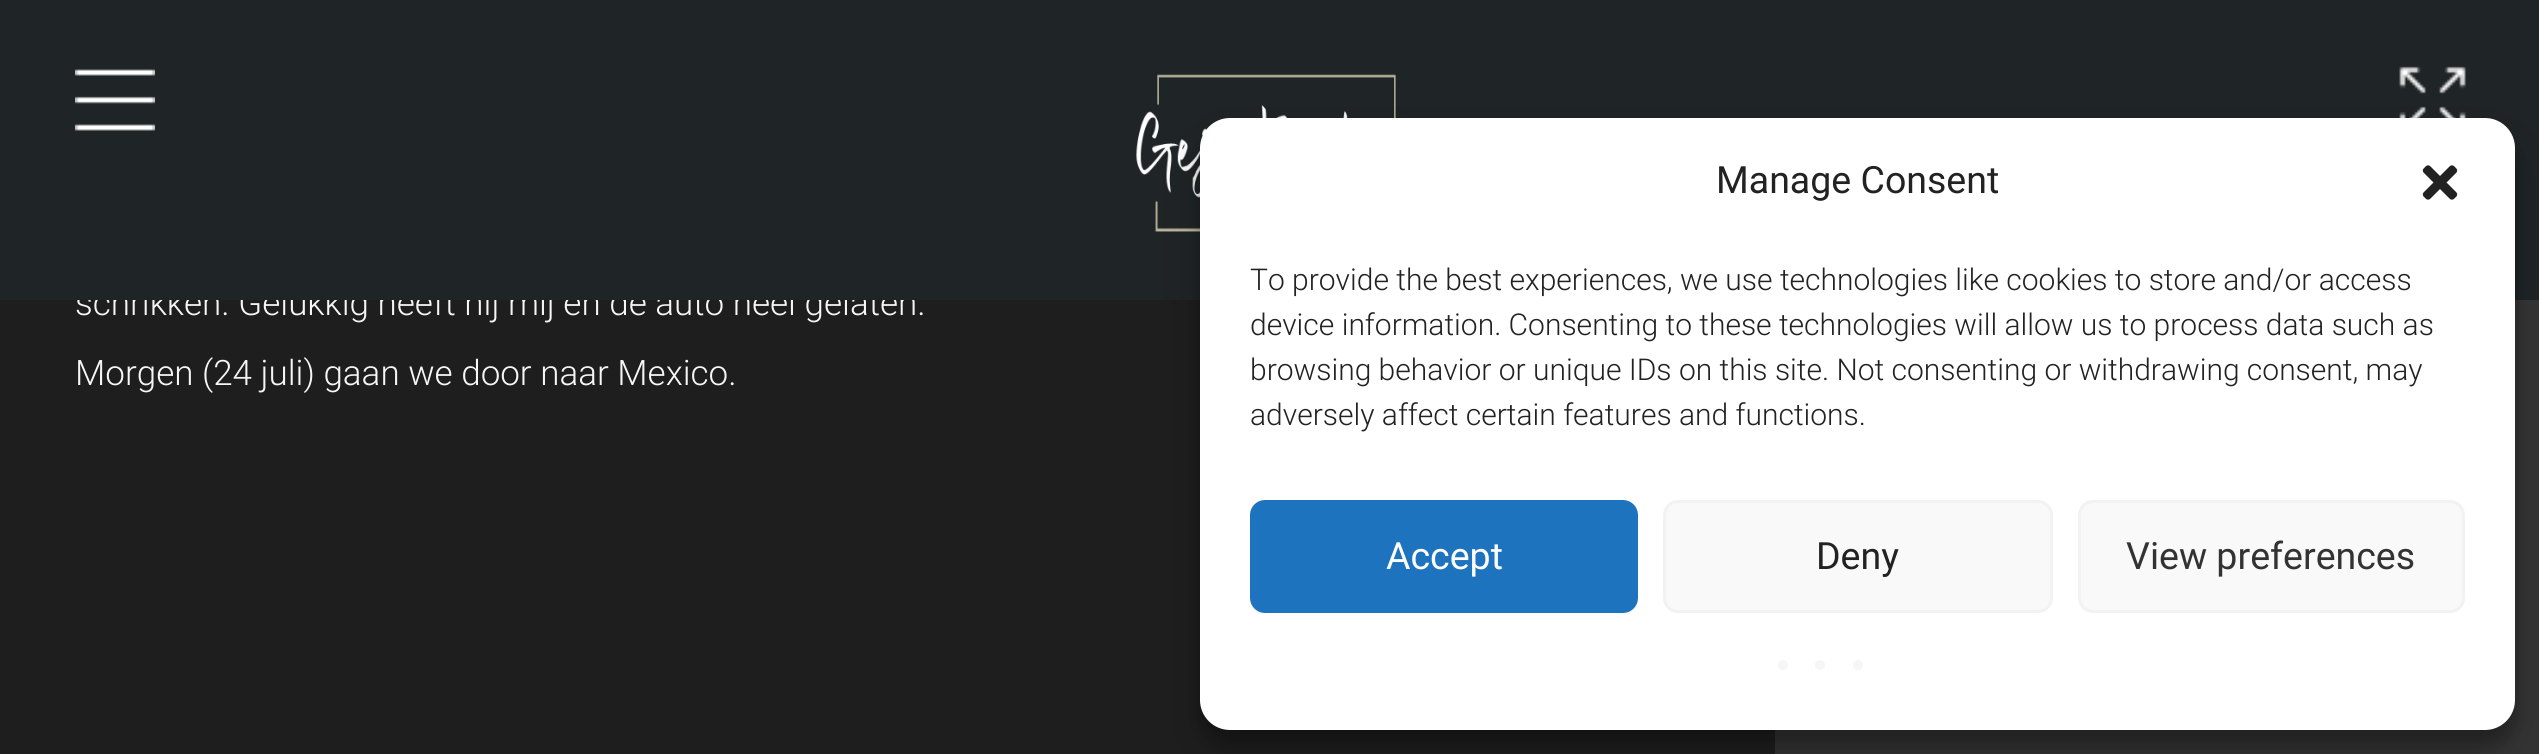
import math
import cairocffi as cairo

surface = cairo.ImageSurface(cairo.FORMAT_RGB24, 2539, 754)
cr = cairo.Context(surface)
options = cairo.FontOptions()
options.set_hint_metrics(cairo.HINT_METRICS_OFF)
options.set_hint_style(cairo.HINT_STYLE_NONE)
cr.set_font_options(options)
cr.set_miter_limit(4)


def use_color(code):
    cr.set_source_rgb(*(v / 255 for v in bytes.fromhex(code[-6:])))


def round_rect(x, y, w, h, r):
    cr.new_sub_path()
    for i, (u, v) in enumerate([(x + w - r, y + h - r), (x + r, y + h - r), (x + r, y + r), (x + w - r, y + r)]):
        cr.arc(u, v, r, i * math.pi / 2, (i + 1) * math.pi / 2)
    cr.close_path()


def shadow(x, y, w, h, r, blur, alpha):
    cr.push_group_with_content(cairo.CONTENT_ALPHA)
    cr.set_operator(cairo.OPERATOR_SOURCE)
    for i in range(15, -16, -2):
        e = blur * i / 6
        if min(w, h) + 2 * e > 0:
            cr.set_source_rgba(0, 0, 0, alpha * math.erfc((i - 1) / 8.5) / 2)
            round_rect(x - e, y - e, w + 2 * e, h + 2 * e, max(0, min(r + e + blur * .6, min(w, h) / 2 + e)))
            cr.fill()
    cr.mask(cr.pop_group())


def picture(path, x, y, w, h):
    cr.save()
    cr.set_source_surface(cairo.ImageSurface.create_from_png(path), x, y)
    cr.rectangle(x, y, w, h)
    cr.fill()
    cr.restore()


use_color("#343434")
cr.paint()
use_color("#1e1e1e")
cr.rectangle(0, 300, 1775, 454)
cr.fill()
cr.select_font_face("Roboto Light")
cr.set_font_size(35)
use_color("#f6f6f6")
cr.move_to(75, 315)
cr.show_text("schrikken. Gelukkig heeft hij mij en de auto heel gelaten.")
use_color("#1f2426")
cr.rectangle(0, 0, 2539, 300)
cr.fill()
picture("img1.png", 75, 69, 80, 62)
picture("img2.png", 1136, 74, 260, 158)
picture("img3.png", 2399, 66, 67, 52)
use_color("#f6f6f6")
cr.move_to(75, 385)
cr.show_text("Morgen (24 juli) gaan we door naar Mexico.")
use_color("#000000")
shadow(1200, 133, 1315, 612, 30, 7.5, 0.23)
shadow(1200, 143, 1315, 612, 30, 25, 0.19)
use_color("#ffffff")
round_rect(1200, 118, 1315, 612, 30)
cr.fill()
cr.select_font_face("Roboto")
cr.set_font_size(37.5)
use_color("#222222")
cr.move_to(1716, 193)
cr.show_text("Manage Consent")
picture("img4.png", 2422, 165, 36, 35)
cr.select_font_face("Roboto Light")
cr.set_font_size(30)
cr.move_to(1250, 290)
cr.show_text("To provide the best experiences, we use technologies like cookies to store and/or access")
cr.move_to(1250, 335)
cr.show_text("device information. Consenting to these technologies will allow us to process data such as")
cr.move_to(1250, 380)
cr.show_text("browsing behavior or unique IDs on this site. Not consenting or withdrawing consent, may")
cr.move_to(1250, 425)
cr.show_text("adversely affect certain features and functions.")
use_color("#1e73be")
round_rect(1251.5, 501.5, 385, 110, 13.5)
cr.fill_preserve()
cr.set_line_width(3)
cr.stroke()
cr.select_font_face("Roboto")
cr.set_font_size(37.5)
use_color("#ffffff")
cr.move_to(1386, 569)
cr.show_text("Accept")
use_color("#f9f9f9")
round_rect(1664.5, 501.5, 387, 110, 13.5)
cr.fill_preserve()
use_color("#f2f2f2")
cr.stroke()
use_color("#222222")
cr.move_to(1816, 569)
cr.show_text("Deny")
use_color("#f9f9f9")
round_rect(2079.5, 501.5, 384, 110, 13.5)
cr.fill_preserve()
use_color("#f2f2f2")
cr.stroke()
use_color("#333333")
cr.move_to(2126, 569)
cr.show_text("View preferences")
use_color("#f6f6f6")
cr.new_path()
cr.arc(1783, 665, 5, 0, 2 * math.pi)
cr.fill()
cr.arc(1820, 665, 5, 0, 2 * math.pi)
cr.fill()
cr.arc(1858, 665, 5, 0, 2 * math.pi)
cr.fill()
surface.write_to_png("result.png")
